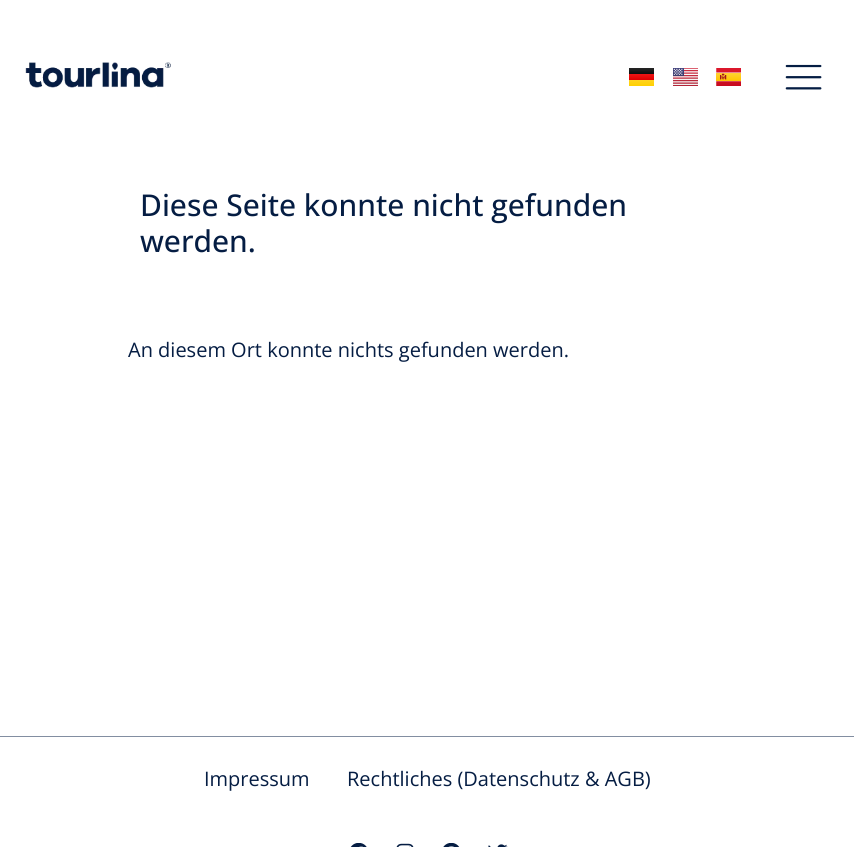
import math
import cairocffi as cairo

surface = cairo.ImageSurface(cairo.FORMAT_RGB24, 854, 847)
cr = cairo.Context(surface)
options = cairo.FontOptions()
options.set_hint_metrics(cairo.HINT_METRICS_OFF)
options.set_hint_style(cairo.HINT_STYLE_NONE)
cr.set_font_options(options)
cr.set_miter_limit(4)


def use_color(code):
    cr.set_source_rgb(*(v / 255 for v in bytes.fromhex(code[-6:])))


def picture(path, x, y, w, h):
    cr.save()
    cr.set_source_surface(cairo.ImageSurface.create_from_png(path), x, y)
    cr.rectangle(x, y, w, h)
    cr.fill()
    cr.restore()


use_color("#ffffff")
cr.paint()
picture("img1.png", 25, 62, 146, 26)
gradient = cairo.LinearGradient(641, 68, 641, 74)
gradient.add_color_stop_rgba(0, 0.149, 0.149, 0.149, 1)
gradient.add_color_stop_rgba(1, 0.051, 0.051, 0.051, 1)
cr.set_source(gradient)
cr.rectangle(629, 68, 25, 6)
cr.fill()
gradient = cairo.LinearGradient(641, 74, 641, 80)
gradient.add_color_stop_rgba(0, 0.941, 0.082, 0.082, 1)
gradient.add_color_stop_rgba(1, 0.871, 0, 0, 1)
cr.set_source(gradient)
cr.rectangle(629, 74, 25, 6)
cr.fill()
gradient = cairo.LinearGradient(641, 80, 641, 86)
gradient.add_color_stop_rgba(0, 1, 0.835, 0.129, 1)
gradient.add_color_stop_rgba(1, 1, 0.812, 0, 1)
cr.set_source(gradient)
cr.rectangle(629, 80, 25, 6)
cr.fill()
picture("img2.png", 673, 68, 25, 18)
picture("img3.png", 716, 68, 25, 18)
picture("img4.png", 785, 64, 37, 26)
cr.select_font_face("Open Sans Medium")
cr.set_font_size(30)
use_color("#051d43")
cr.move_to(140, 216)
cr.show_text("Diese Seite konnte nicht gefunden")
cr.move_to(140, 252)
cr.show_text("werden.")
cr.select_font_face("Open Sans")
cr.set_font_size(20)
cr.move_to(128, 357)
cr.show_text("An diesem Ort konnte nichts gefunden werden.")
use_color("#828ea1")
cr.rectangle(0, 736, 854, 1)
cr.fill()
use_color("#051d43")
cr.move_to(204, 786)
cr.show_text("Impressum")
cr.move_to(347, 786)
cr.show_text("Rechtliches (Datenschutz & AGB)")
picture("img5.png", 350, 843, 17, 4)
picture("img6.png", 396, 843, 18, 4)
picture("img7.png", 443, 843, 17, 4)
picture("img8.png", 488, 844, 20, 3)
surface.write_to_png("result.png")
